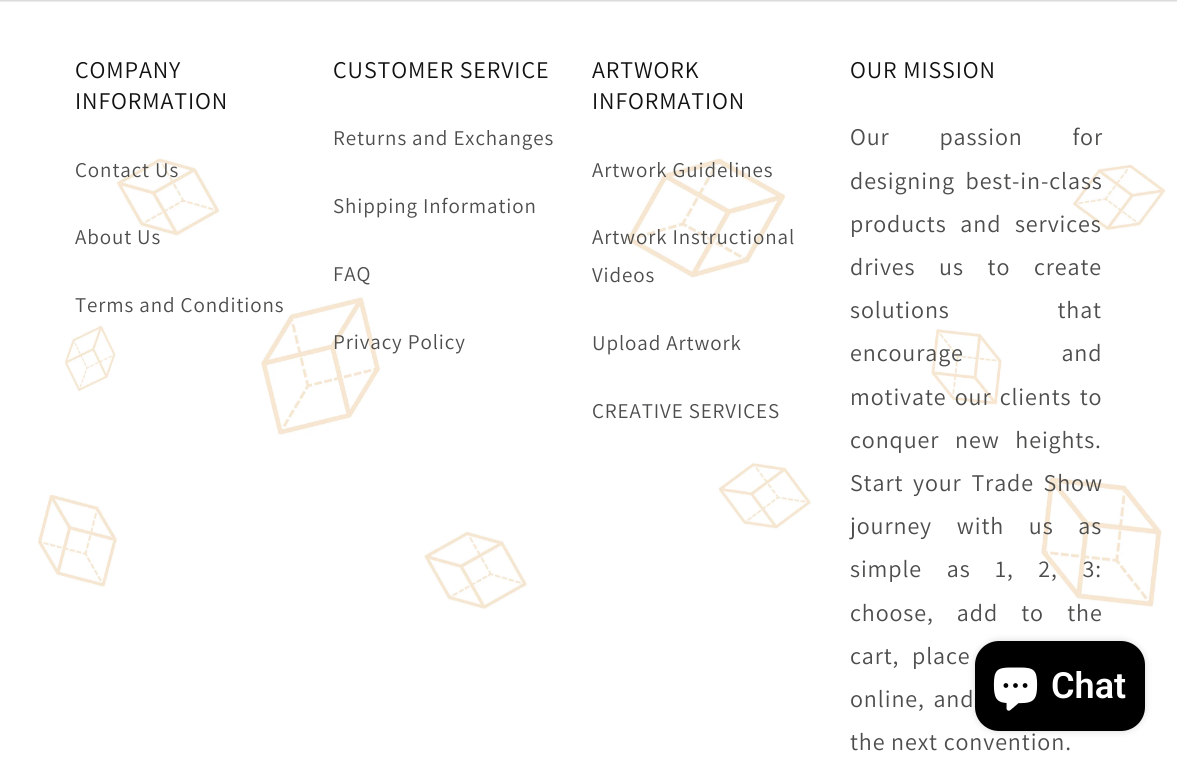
import math
import cairocffi as cairo

surface = cairo.ImageSurface(cairo.FORMAT_RGB24, 1177, 761)
cr = cairo.Context(surface)
options = cairo.FontOptions()
options.set_hint_metrics(cairo.HINT_METRICS_OFF)
options.set_hint_style(cairo.HINT_STYLE_NONE)
cr.set_font_options(options)
cr.set_miter_limit(4)


def use_color(code):
    cr.set_source_rgb(*(v / 255 for v in bytes.fromhex(code[-6:])))


def spaced_text(x, y, s, letter, word):
    cr.move_to(x, y)
    for ch in s:
        cr.show_text(ch)
        cr.rel_move_to(letter + word * (ch == ' '), 0)


def round_rect(x, y, w, h, r):
    cr.new_sub_path()
    for i, (u, v) in enumerate([(x + w - r, y + h - r), (x + r, y + h - r), (x + r, y + r), (x + w - r, y + r)]):
        cr.arc(u, v, r, i * math.pi / 2, (i + 1) * math.pi / 2)
    cr.close_path()


def shadow(x, y, w, h, r, blur, alpha):
    cr.push_group_with_content(cairo.CONTENT_ALPHA)
    cr.set_operator(cairo.OPERATOR_SOURCE)
    for i in range(15, -16, -2):
        e = blur * i / 6
        if min(w, h) + 2 * e > 0:
            cr.set_source_rgba(0, 0, 0, alpha * math.erfc((i - 1) / 8.5) / 2)
            round_rect(x - e, y - e, w + 2 * e, h + 2 * e, max(0, min(r + e + blur * .6, min(w, h) / 2 + e)))
            cr.fill()
    cr.mask(cr.pop_group())


def picture(path, x, y, w, h):
    cr.save()
    cr.set_source_surface(cairo.ImageSurface.create_from_png(path), x, y)
    cr.rectangle(x, y, w, h)
    cr.fill()
    cr.restore()


use_color("#ffffff")
cr.paint()
use_color("#dbdbdb")
cr.rectangle(0, 0, 1177, 1)
cr.fill()
picture("img1.png", 38, 158, 1128, 451)
use_color("#ececec")
cr.rectangle(0, 1, 1177, 1)
cr.fill()
cr.select_font_face("Assistant")
cr.set_font_size(24)
use_color("#121212")
spaced_text(75, 78, "COMPANY", 0.9, 0)
spaced_text(75, 109, "INFORMATION", 0.9, 0)
cr.set_font_size(21)
use_color("#4d4d4c")
spaced_text(75, 177, "Contact Us", 0.9, 0)
spaced_text(75, 244, "About Us", 0.9, 0)
spaced_text(75, 312, "Terms and Conditions", 0.9, 0)
cr.set_font_size(24)
use_color("#121212")
spaced_text(333, 78, "CUSTOMER SERVICE", 0.9, 0)
cr.set_font_size(21)
use_color("#4d4d4c")
spaced_text(333, 145, "Returns and Exchanges", 0.9, 0)
spaced_text(333, 213, "Shipping Information", 0.9, 0)
spaced_text(333, 281, "FAQ", 0.9, 0)
spaced_text(333, 349, "Privacy Policy", 0.9, 0)
cr.set_font_size(24)
use_color("#121212")
spaced_text(592, 78, "ARTWORK", 0.9, 0)
spaced_text(592, 109, "INFORMATION", 0.9, 0)
cr.set_font_size(21)
use_color("#4d4d4c")
spaced_text(592, 177, "Artwork Guidelines", 0.9, 0)
spaced_text(592, 244, "Artwork Instructional", 0.9, 0)
spaced_text(592, 282, "Videos", 0.9, 0)
spaced_text(592, 350, "Upload Artwork", 0.9, 0)
spaced_text(592, 418, "CREATIVE SERVICES", 0.9, 0)
cr.set_font_size(24)
use_color("#121212")
spaced_text(850, 78, "OUR MISSION", 0.9, 0)
use_color("#4d4d4c")
spaced_text(850, 145, "Our passion for", 0.9, 44)
spaced_text(850, 189, "designing best-in-class", 0.9, 5)
spaced_text(850, 232, "products and services", 0.9, 8)
spaced_text(850, 275, "drives us to create", 0.9, 18)
spaced_text(850, 318, "solutions that", 0.9, 102)
spaced_text(850, 361, "encourage and", 0.9, 92)
spaced_text(850, 405, "motivate our clients to", 0.9, 2.5)
spaced_text(850, 448, "conquer new heights.", 0.9, 10)
spaced_text(850, 491, "Start your Trade Show", 0.9, 4)
spaced_text(850, 534, "journey with us as", 0.9, 19)
spaced_text(850, 577, "simple as 1, 2, 3:", 0.9, 19)
spaced_text(850, 621, "choose, add to the", 0.9, 17.5)
spaced_text(850, 664, "cart, place", 0.9, 7)
spaced_text(850, 707, "online, and", 0.9, 3)
spaced_text(850, 750, "the next convention.", 0.9, 0)
use_color("#000000")
shadow(975, 641, 170, 90, 24, 4, 0.15)
use_color("#000000")
round_rect(975, 641, 170, 90, 24)
cr.fill()
picture("img2.png", 993, 667, 45, 44)
cr.select_font_face("Roboto SemiBold")
cr.set_font_size(36)
use_color("#ffffff")
cr.move_to(1051, 698)
cr.show_text("Chat")
surface.write_to_png("result.png")
